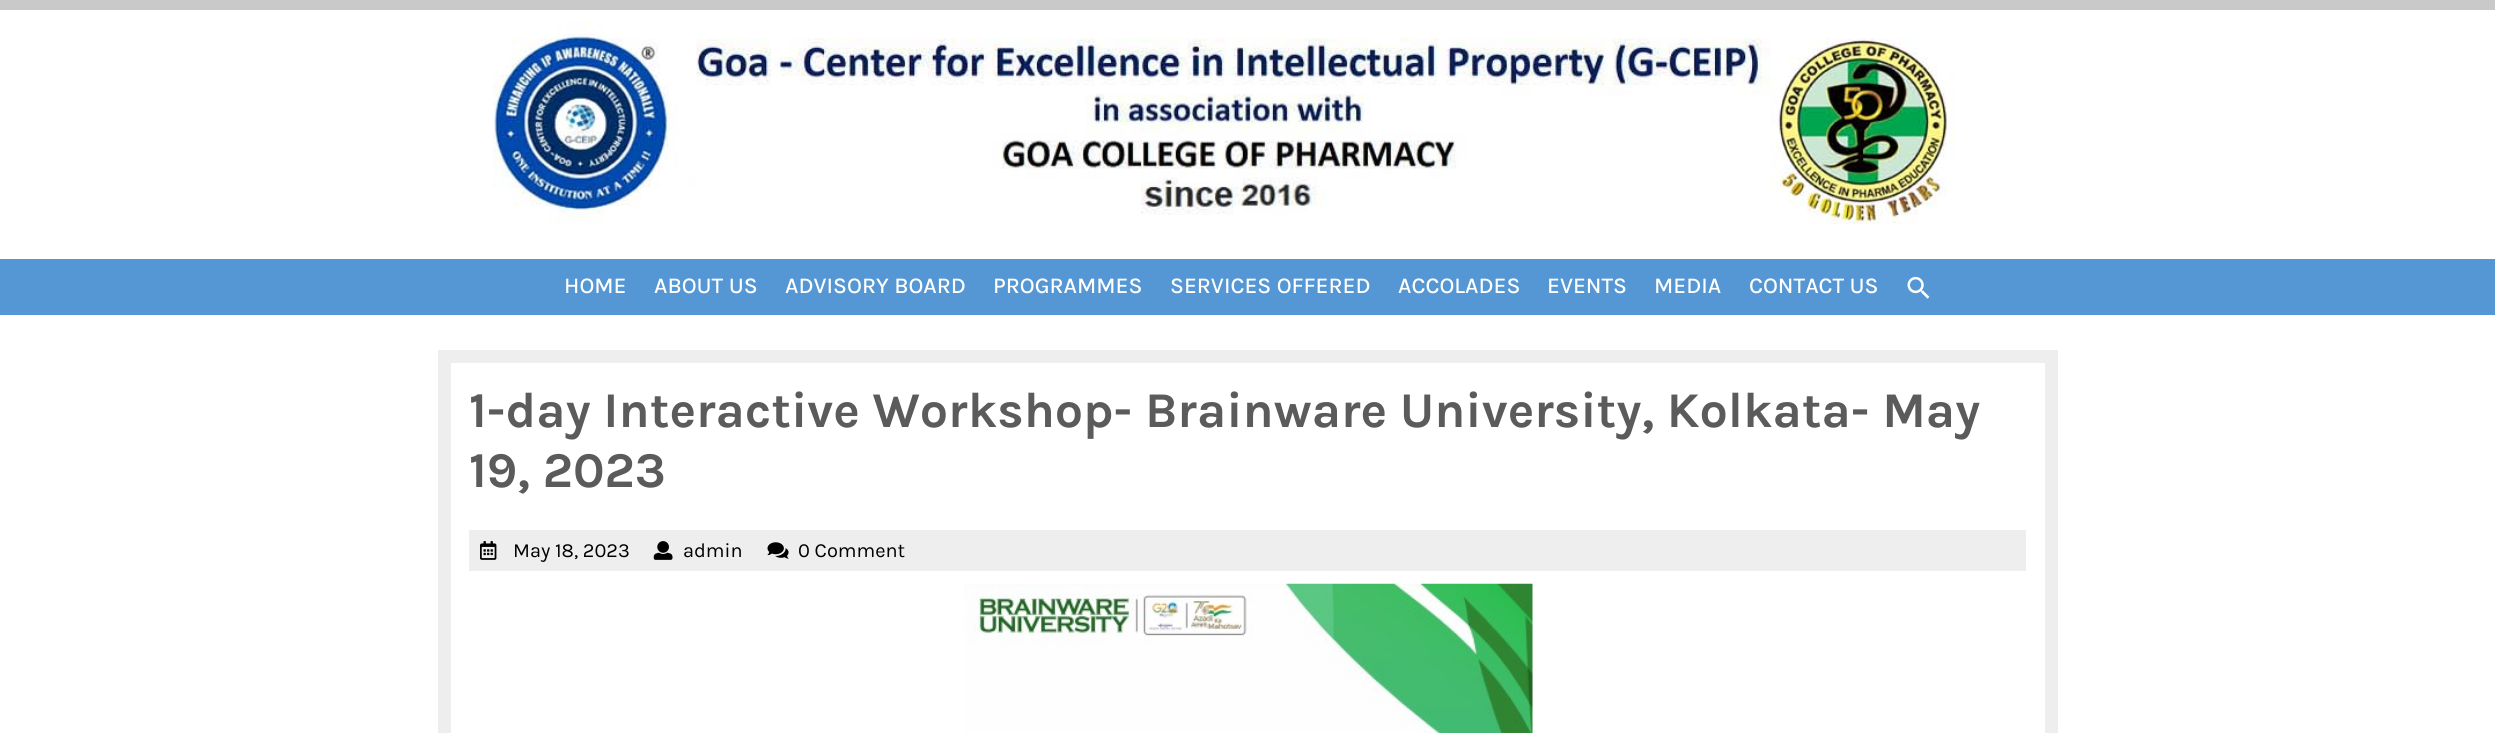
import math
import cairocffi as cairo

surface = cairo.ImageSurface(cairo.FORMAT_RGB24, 2495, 733)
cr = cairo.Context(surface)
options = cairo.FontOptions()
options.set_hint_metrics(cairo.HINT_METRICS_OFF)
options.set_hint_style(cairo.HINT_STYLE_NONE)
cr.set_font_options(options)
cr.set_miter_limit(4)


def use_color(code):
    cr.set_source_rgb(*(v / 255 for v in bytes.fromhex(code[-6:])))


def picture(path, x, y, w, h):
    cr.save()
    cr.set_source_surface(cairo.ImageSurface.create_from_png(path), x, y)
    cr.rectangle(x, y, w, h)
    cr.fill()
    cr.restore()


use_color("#ffffff")
cr.paint()
use_color("#c9c9c9")
cr.rectangle(0, 0, 2495, 10)
cr.fill()
picture("img1.png", 493, 20, 1463, 205)
use_color("#5497d4")
cr.rectangle(0, 259, 2495, 56)
cr.fill()
cr.select_font_face("Karla Medium")
cr.set_font_size(22.5)
use_color("#ffffff")
cr.move_to(564, 293)
cr.show_text("HOME")
cr.move_to(654, 293)
cr.show_text("ABOUT US")
cr.move_to(785, 293)
cr.show_text("ADVISORY BOARD")
cr.move_to(993, 293)
cr.show_text("PROGRAMMES")
cr.move_to(1170, 293)
cr.show_text("SERVICES OFFERED")
cr.move_to(1398, 293)
cr.show_text("ACCOLADES")
cr.move_to(1547, 293)
cr.show_text("EVENTS")
cr.move_to(1654, 293)
cr.show_text("MEDIA")
cr.move_to(1749, 293)
cr.show_text("CONTACT US")
picture("img2.png", 1907, 276, 23, 23)
cr.rectangle(444.5, 356.5, 1607, 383)
use_color("#eeeeee")
cr.set_line_width(13)
cr.stroke()
cr.select_font_face("Karla", cairo.FONT_SLANT_NORMAL, cairo.FONT_WEIGHT_BOLD)
cr.set_font_size(50)
use_color("#5b5b5b")
cr.move_to(469, 427)
cr.show_text("1-day Interactive Workshop- Brainware University, Kolkata- May")
cr.move_to(469, 487)
cr.show_text("19, 2023")
use_color("#eeeeee")
cr.rectangle(469, 530, 1557, 41)
cr.fill()
picture("img3.png", 480, 541, 17, 19)
cr.select_font_face("Karla")
cr.set_font_size(20)
use_color("#000000")
cr.move_to(513, 557)
cr.show_text("May 18, 2023")
picture("img4.png", 653, 541, 20, 19)
cr.move_to(683, 557)
cr.show_text("admin")
picture("img5.png", 767, 542, 22, 17)
cr.move_to(798, 557)
cr.show_text("0 Comment")
picture("img6.png", 964, 583, 569, 150)
surface.write_to_png("result.png")
